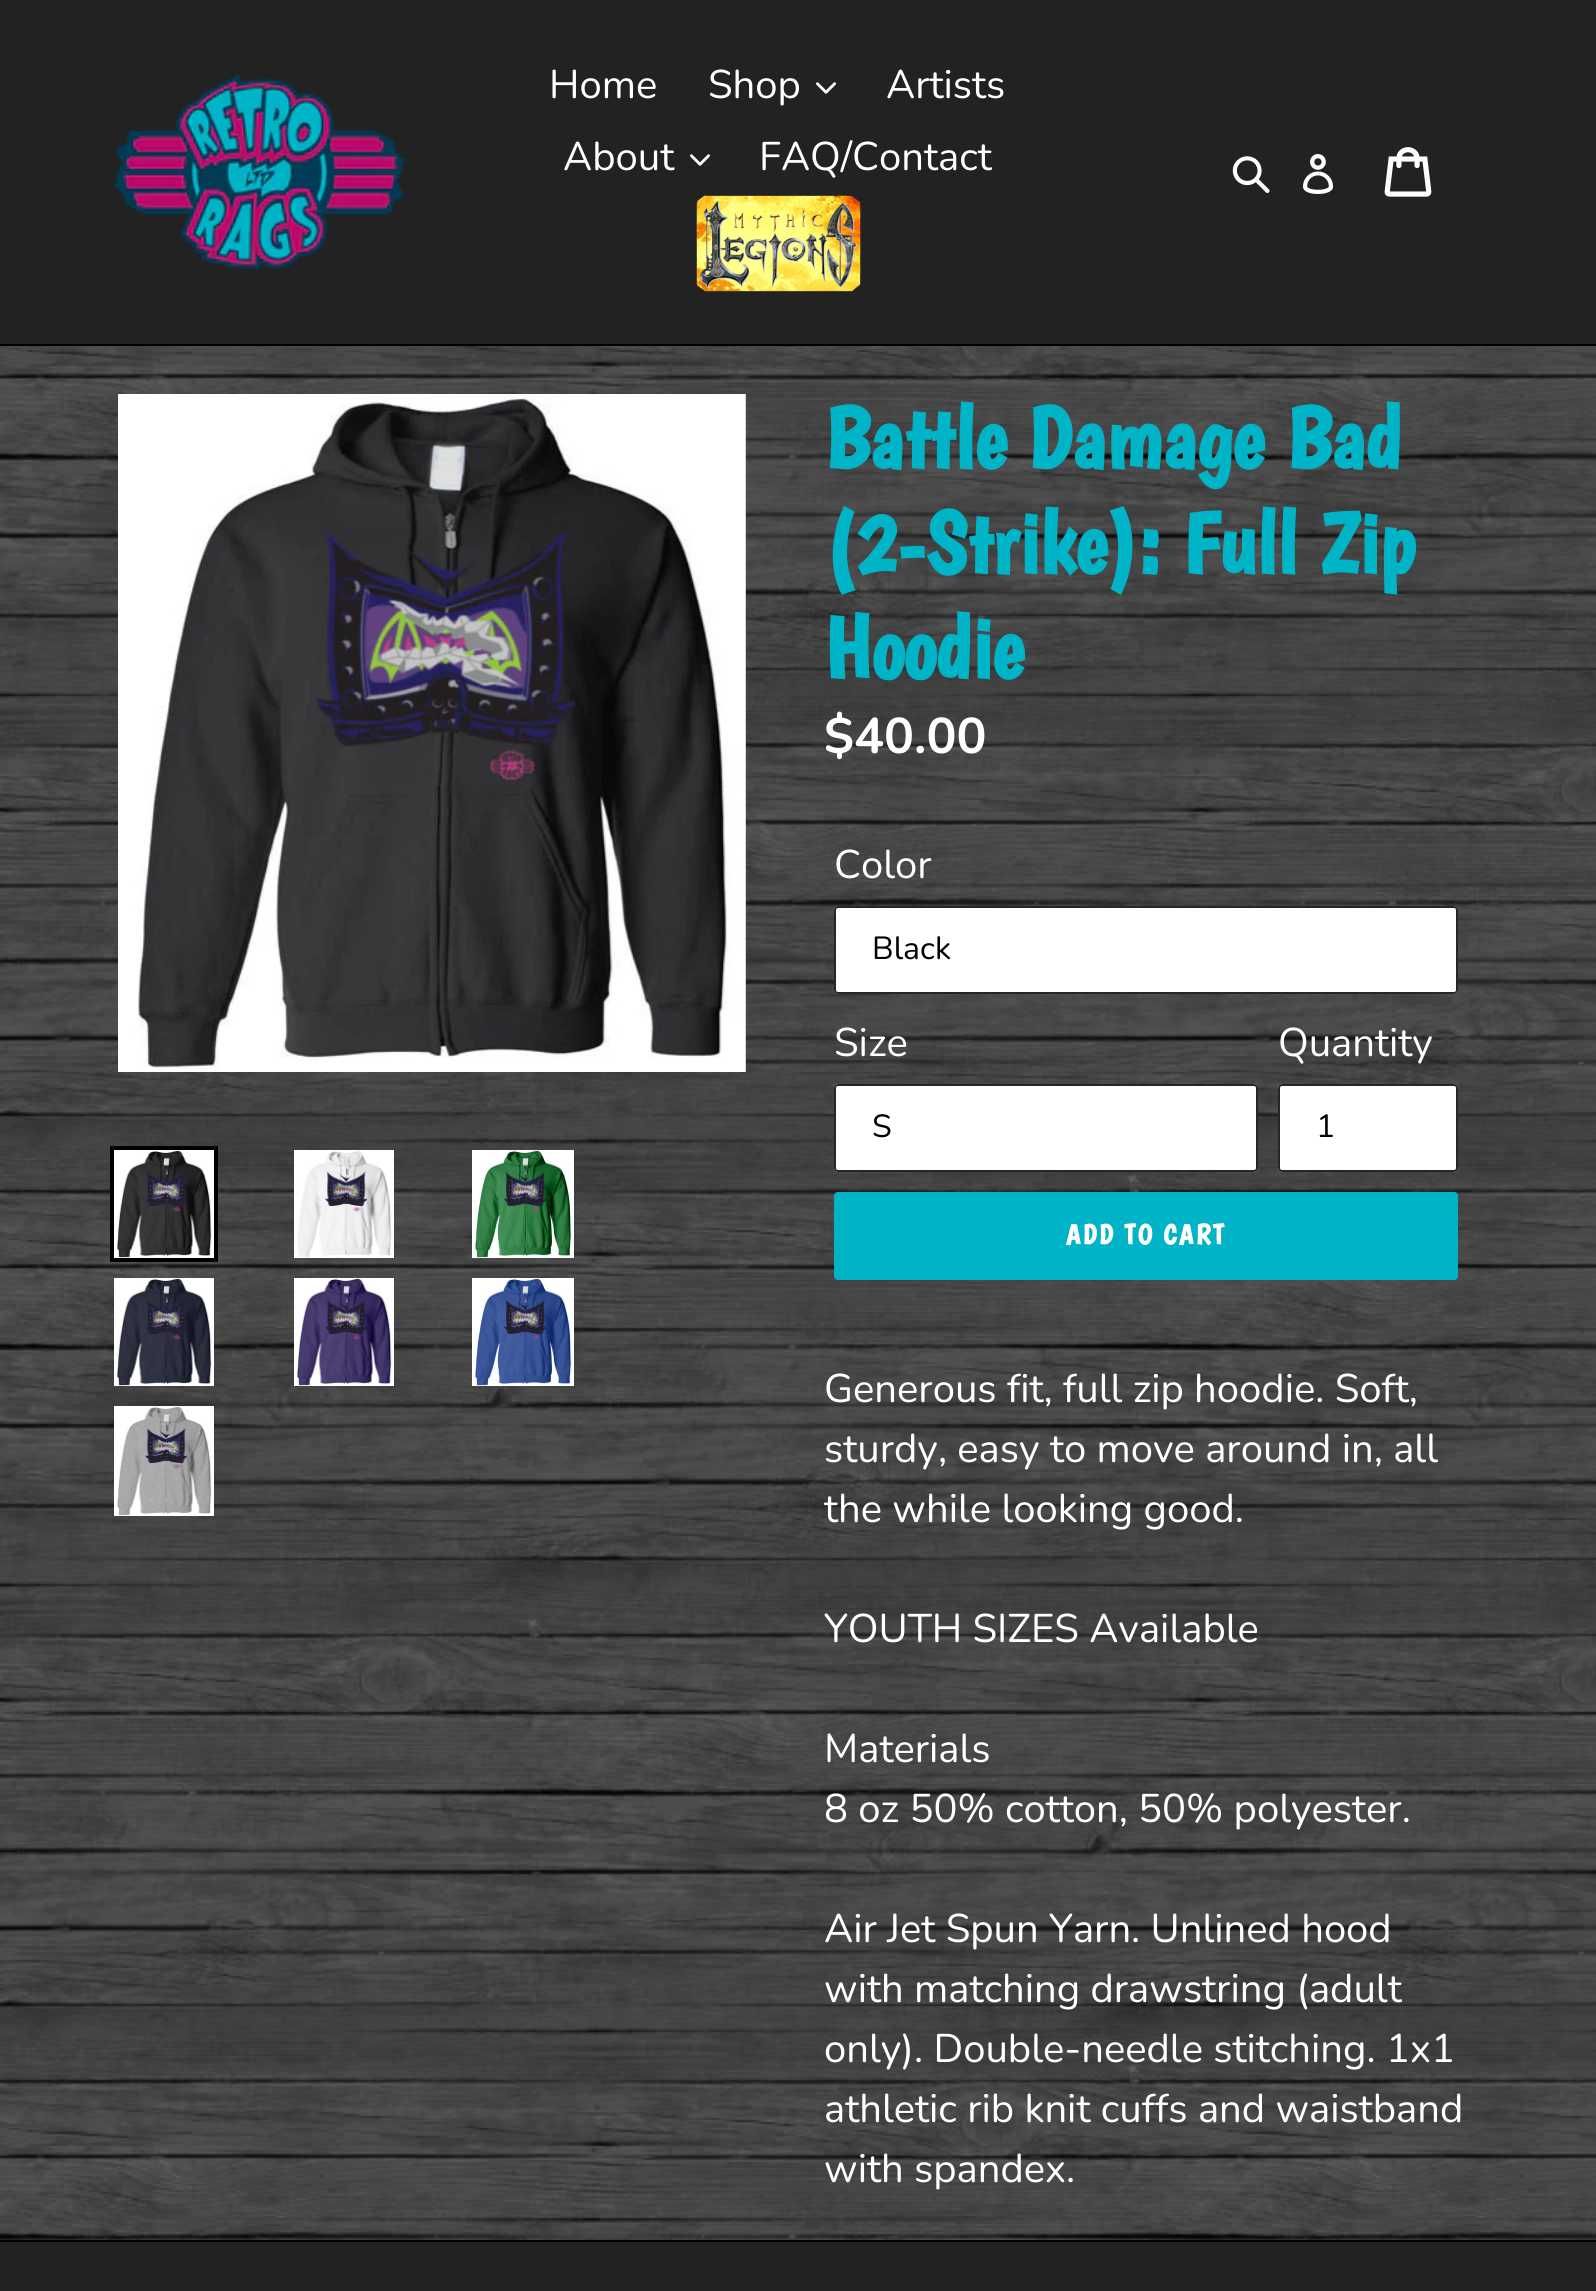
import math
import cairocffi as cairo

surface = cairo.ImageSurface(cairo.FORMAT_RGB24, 1596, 2291)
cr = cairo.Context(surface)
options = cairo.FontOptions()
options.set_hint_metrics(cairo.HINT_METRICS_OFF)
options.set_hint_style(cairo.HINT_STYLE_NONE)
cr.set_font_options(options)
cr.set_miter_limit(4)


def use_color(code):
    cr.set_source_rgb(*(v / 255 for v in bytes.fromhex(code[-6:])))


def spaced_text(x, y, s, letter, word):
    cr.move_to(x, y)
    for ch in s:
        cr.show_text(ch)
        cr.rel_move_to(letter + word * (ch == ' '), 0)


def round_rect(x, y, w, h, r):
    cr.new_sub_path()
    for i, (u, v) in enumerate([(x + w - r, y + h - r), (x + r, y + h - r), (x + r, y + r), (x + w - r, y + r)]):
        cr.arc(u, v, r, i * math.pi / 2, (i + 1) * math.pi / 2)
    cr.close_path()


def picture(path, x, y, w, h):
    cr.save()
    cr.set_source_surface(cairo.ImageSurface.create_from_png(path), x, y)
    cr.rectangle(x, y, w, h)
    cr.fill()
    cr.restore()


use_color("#222222")
cr.paint()
use_color("#000000")
cr.rectangle(0, 344, 1596, 2)
cr.fill()
picture("img1.png", 113, 74, 293, 195)
cr.select_font_face("Nunito")
cr.set_font_size(40)
use_color("#ffffff")
cr.move_to(549, 98)
cr.show_text("Home")
cr.move_to(708, 98)
cr.show_text("Shop")
picture("img2.png", 816, 82, 20, 12)
cr.move_to(886, 98)
cr.show_text("Artists")
cr.move_to(563, 170)
cr.show_text("About")
picture("img2.png", 690, 154, 20, 12)
cr.move_to(759, 170)
cr.show_text("FAQ/Contact")
picture("img3.png", 696, 195, 165, 97)
picture("img4.png", 1232, 156, 38, 37)
picture("img5.png", 1303, 154, 31, 40)
picture("img6.png", 1384, 147, 48, 50)
picture("img7.png", 0, 346, 1596, 1894)
picture("img8.png", 118, 394, 628, 678)
cr.rectangle(112, 1148, 104, 112)
use_color("#000000")
cr.set_line_width(4)
cr.stroke()
picture("img9.png", 114, 1150, 100, 108)
picture("img10.png", 294, 1150, 100, 108)
picture("img11.png", 472, 1150, 102, 108)
picture("img12.png", 114, 1278, 100, 108)
picture("img13.png", 294, 1278, 100, 108)
picture("img14.png", 472, 1278, 102, 108)
picture("img15.png", 114, 1406, 100, 110)
cr.select_font_face("Boogaloo", cairo.FONT_SLANT_NORMAL, cairo.FONT_WEIGHT_BOLD)
cr.set_font_size(87.5)
use_color("#00b4c7")
cr.move_to(824, 468)
cr.show_text("Battle Damage Bad")
cr.move_to(824, 573)
cr.show_text("(2-Strike): Full Zip")
cr.move_to(824, 678)
cr.show_text("Hoodie")
cr.select_font_face("Nunito", cairo.FONT_SLANT_NORMAL, cairo.FONT_WEIGHT_BOLD)
cr.set_font_size(50)
use_color("#ffffff")
cr.move_to(824, 753)
cr.show_text("$40.00")
cr.select_font_face("Nunito")
cr.set_font_size(40)
cr.move_to(834, 878)
cr.show_text("Color")
round_rect(834, 906, 624, 88, 4)
cr.fill()
round_rect(835, 907, 622, 86, 3)
cr.set_source_rgba(0, 0, 0, 0.85)
cr.set_line_width(2)
cr.stroke()
cr.set_font_size(32)
use_color("#000000")
cr.move_to(872, 959)
cr.show_text("Black")
cr.set_font_size(40)
use_color("#ffffff")
cr.move_to(834, 1056)
cr.show_text("Size")
round_rect(834, 1084, 424, 88, 4)
cr.fill()
round_rect(835, 1085, 422, 86, 3)
cr.set_source_rgba(0, 0, 0, 0.85)
cr.stroke()
cr.set_font_size(32)
use_color("#000000")
cr.move_to(872, 1137)
cr.show_text("S")
cr.set_font_size(40)
use_color("#ffffff")
cr.move_to(1278, 1056)
cr.show_text("Quantity")
round_rect(1278, 1084, 180, 88, 4)
cr.fill()
round_rect(1279, 1085, 178, 86, 3)
cr.set_source_rgba(0, 0, 0, 0.85)
cr.stroke()
cr.set_font_size(32)
use_color("#000000")
cr.move_to(1316, 1137)
cr.show_text("1")
use_color("#00b4c7")
round_rect(834, 1192, 624, 88, 4)
cr.fill()
cr.select_font_face("Boogaloo", cairo.FONT_SLANT_NORMAL, cairo.FONT_WEIGHT_BOLD)
cr.set_font_size(28)
use_color("#ffffff")
spaced_text(1066, 1244, "ADD TO CART", 2.25, 0)
cr.select_font_face("Nunito")
cr.set_font_size(40)
cr.move_to(824, 1402)
cr.show_text("Generous fit, full zip hoodie. Soft,")
cr.move_to(824, 1462)
cr.show_text("sturdy, easy to move around in, all")
cr.move_to(824, 1522)
cr.show_text("the while looking good.")
cr.move_to(824, 1642)
cr.show_text("YOUTH SIZES Available")
cr.move_to(824, 1762)
cr.show_text("Materials")
cr.move_to(824, 1822)
cr.show_text("8 oz 50% cotton, 50% polyester.")
cr.move_to(824, 1942)
cr.show_text("Air Jet Spun Yarn. Unlined hood")
cr.move_to(824, 2002)
cr.show_text("with matching drawstring (adult")
cr.move_to(824, 2062)
cr.show_text("only). Double-needle stitching. 1x1")
cr.move_to(824, 2122)
cr.show_text("athletic rib knit cuffs and waistband")
cr.move_to(824, 2182)
cr.show_text("with spandex.")
use_color("#000000")
cr.rectangle(0, 2240, 1596, 2)
cr.fill()
surface.write_to_png("result.png")
